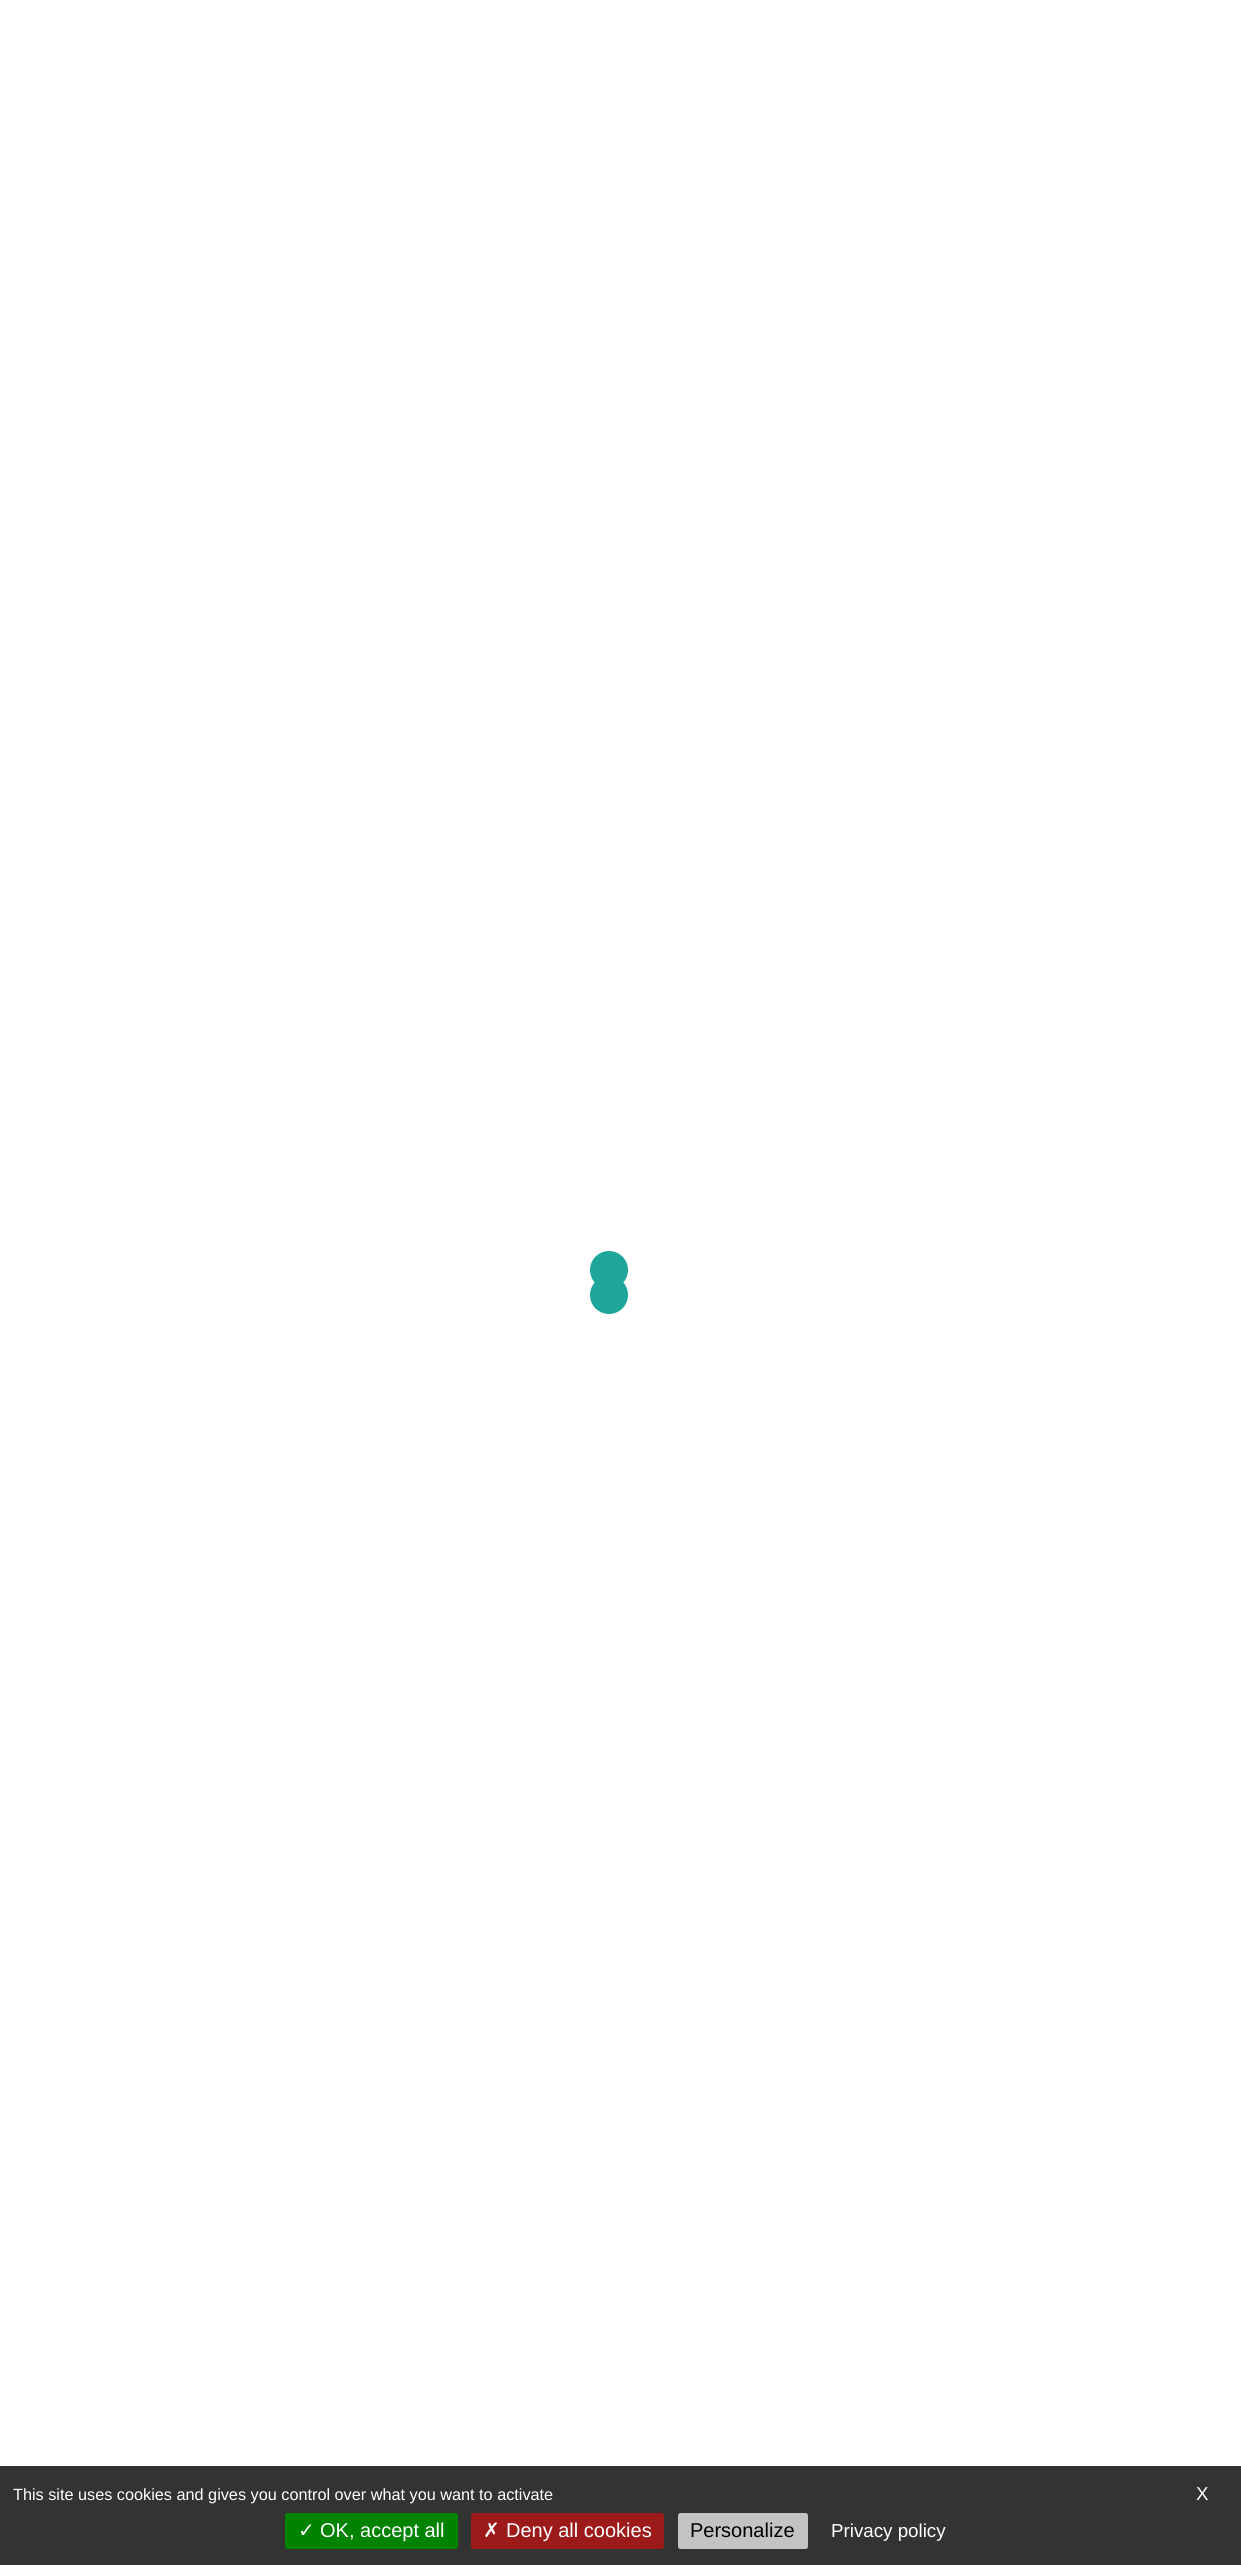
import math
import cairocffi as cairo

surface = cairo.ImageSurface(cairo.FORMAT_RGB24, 1241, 2565)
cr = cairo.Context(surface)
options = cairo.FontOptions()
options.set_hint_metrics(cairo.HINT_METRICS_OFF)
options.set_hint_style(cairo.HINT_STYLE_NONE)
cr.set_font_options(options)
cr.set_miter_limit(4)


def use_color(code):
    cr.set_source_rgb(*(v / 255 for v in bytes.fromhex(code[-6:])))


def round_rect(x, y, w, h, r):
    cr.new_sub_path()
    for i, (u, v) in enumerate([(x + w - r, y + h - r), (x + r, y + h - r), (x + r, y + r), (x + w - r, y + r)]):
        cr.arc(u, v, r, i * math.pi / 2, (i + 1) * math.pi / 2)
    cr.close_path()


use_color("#ffffff")
cr.paint()
use_color("#1ea69a")
cr.arc(609, 1270, 19, 0, 2 * math.pi)
cr.fill()
cr.arc(609, 1295, 19, 0, 2 * math.pi)
cr.fill()
use_color("#333333")
cr.rectangle(0, 2466, 1241, 99)
cr.fill()
cr.select_font_face("Liberation Sans")
cr.set_font_size(16.25)
use_color("#ffffff")
cr.move_to(13, 2500)
cr.show_text("This site uses cookies and gives you control over what you want to activate")
cr.set_font_size(18.75)
cr.move_to(1196, 2500)
cr.show_text("X")
use_color("#008300")
round_rect(285, 2513, 173, 36, 2.5)
cr.fill()
cr.select_font_face("DejaVu Sans")
cr.set_font_size(20)
use_color("#ffffff")
cr.move_to(298, 2537)
cr.show_text("✓")
cr.select_font_face("Liberation Sans")
cr.move_to(320, 2537)
cr.show_text("OK, accept all")
use_color("#9c1a1a")
round_rect(471, 2513, 193, 36, 2.5)
cr.fill()
cr.select_font_face("DejaVu Sans")
use_color("#ffffff")
cr.move_to(483, 2537)
cr.show_text("✗")
cr.select_font_face("Liberation Sans")
cr.move_to(506, 2537)
cr.show_text("Deny all cookies")
use_color("#c3c3c3")
round_rect(678, 2513, 130, 36, 2.5)
cr.fill()
use_color("#000000")
cr.move_to(690, 2537)
cr.show_text("Personalize")
cr.set_font_size(18.75)
use_color("#ffffff")
cr.move_to(831, 2537)
cr.show_text("Privacy policy")
surface.write_to_png("result.png")
